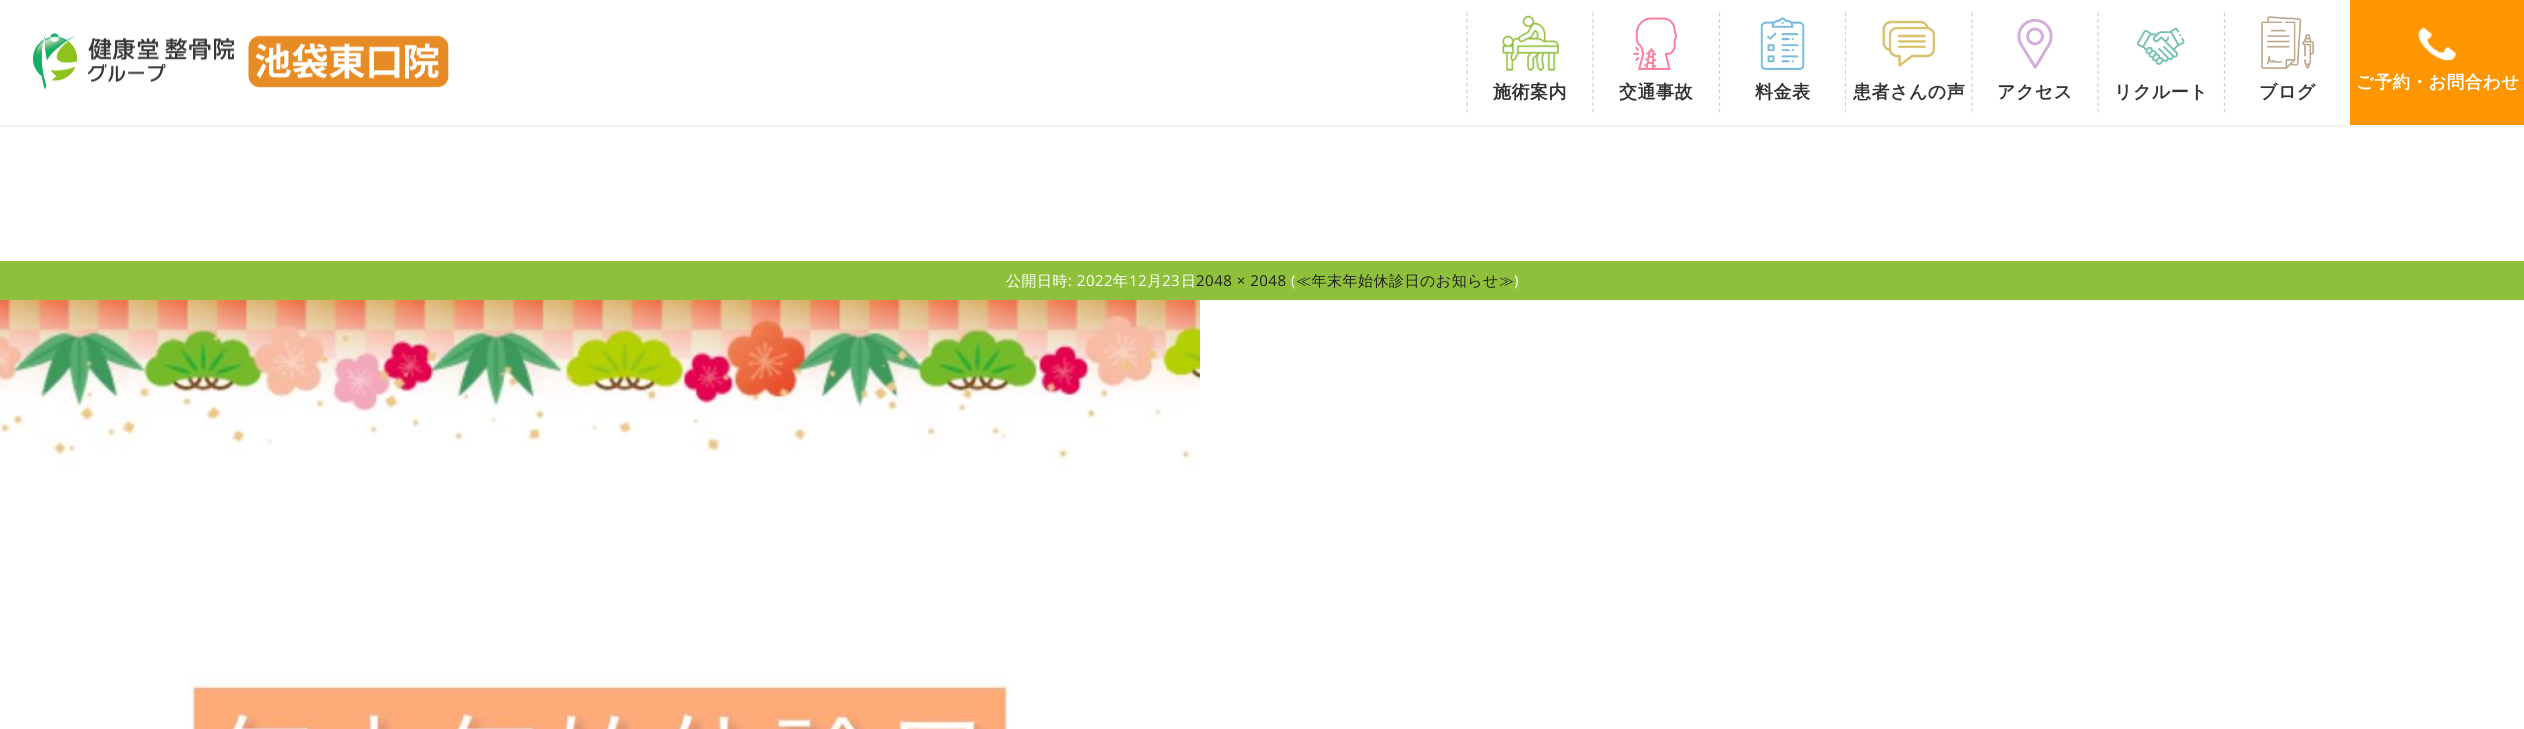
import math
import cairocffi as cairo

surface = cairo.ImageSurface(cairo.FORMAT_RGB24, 2524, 729)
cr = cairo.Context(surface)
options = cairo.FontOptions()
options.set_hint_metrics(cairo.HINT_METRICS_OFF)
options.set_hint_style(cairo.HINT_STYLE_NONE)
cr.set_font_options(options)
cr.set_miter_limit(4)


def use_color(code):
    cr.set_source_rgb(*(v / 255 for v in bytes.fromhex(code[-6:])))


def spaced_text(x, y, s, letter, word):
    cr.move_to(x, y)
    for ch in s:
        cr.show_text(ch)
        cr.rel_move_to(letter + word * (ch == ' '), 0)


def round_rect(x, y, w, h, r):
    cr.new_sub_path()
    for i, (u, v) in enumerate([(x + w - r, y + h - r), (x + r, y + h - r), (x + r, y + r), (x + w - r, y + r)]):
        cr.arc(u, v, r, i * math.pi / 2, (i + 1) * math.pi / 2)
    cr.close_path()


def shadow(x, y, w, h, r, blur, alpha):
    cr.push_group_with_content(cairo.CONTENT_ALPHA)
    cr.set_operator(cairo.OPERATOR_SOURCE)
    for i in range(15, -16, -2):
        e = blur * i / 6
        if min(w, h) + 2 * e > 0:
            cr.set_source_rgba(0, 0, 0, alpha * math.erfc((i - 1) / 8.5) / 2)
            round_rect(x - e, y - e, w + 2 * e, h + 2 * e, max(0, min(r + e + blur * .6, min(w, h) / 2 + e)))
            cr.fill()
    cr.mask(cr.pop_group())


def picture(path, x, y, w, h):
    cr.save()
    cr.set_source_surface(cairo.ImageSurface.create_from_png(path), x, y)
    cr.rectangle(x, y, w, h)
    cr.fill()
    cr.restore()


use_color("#ffffff")
cr.paint()
use_color("#000000")
shadow(0, 0, 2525, 125, 0, 2, 0.15)
use_color("#ffffff")
cr.rectangle(0, 0, 2350, 125)
cr.fill()
picture("img1.png", 33, 33, 416, 57)
cr.new_path()
cr.move_to(1467, 12.5)
cr.line_to(1467, 112.5)
use_color("#d2d2d2")
cr.set_line_width(1.2)
cr.set_dash([3.75, 2.66])
cr.stroke()
picture("img2.png", 1502, 15, 57, 56)
cr.select_font_face("WenQuanYi Zen Hei", cairo.FONT_SLANT_NORMAL, cairo.FONT_WEIGHT_BOLD)
cr.set_font_size(18)
use_color("#333333")
spaced_text(1493, 98, "施術案内", 0.5, 0)
cr.new_path()
cr.move_to(1593, 12.5)
cr.line_to(1593, 112.5)
use_color("#d2d2d2")
cr.stroke()
picture("img3.png", 1633, 17, 44, 53)
use_color("#333333")
spaced_text(1619, 98, "交通事故", 0.5, 0)
cr.new_path()
cr.move_to(1719.5, 12.5)
cr.line_to(1719.5, 112.5)
use_color("#d2d2d2")
cr.stroke()
picture("img4.png", 1760, 17, 45, 53)
use_color("#333333")
spaced_text(1755, 98, "料金表", 0.5, 0)
cr.new_path()
cr.move_to(1845.5, 12.5)
cr.line_to(1845.5, 112.5)
use_color("#d2d2d2")
cr.stroke()
picture("img5.png", 1882, 20, 53, 47)
use_color("#333333")
spaced_text(1853, 98, "患者さんの声", 0.5, 0)
cr.new_path()
cr.move_to(1972, 12.5)
cr.line_to(1972, 112.5)
use_color("#d2d2d2")
cr.stroke()
picture("img6.png", 2017, 18, 36, 51)
use_color("#333333")
spaced_text(1997, 98, "アクセス", 0.5, 0)
cr.new_path()
cr.move_to(2098, 12.5)
cr.line_to(2098, 112.5)
use_color("#d2d2d2")
cr.stroke()
picture("img7.png", 2137, 27, 48, 38)
use_color("#333333")
spaced_text(2114, 98, "リクルート", 0.5, 0)
cr.new_path()
cr.move_to(2224.5, 12.5)
cr.line_to(2224.5, 112.5)
use_color("#d2d2d2")
cr.stroke()
picture("img8.png", 2261, 16, 53, 53)
use_color("#333333")
spaced_text(2259, 98, "ブログ", 0.5, 0)
use_color("#fe9602")
cr.rectangle(2350, 0, 174, 125)
cr.fill()
picture("img9.png", 2418, 27, 38, 35)
cr.set_font_size(17.5)
use_color("#ffffff")
spaced_text(2356, 88, "ご予約・お問合わせ", 0.5, 0)
use_color("#8ec03b")
cr.rectangle(0, 261, 2524, 39)
cr.fill()
cr.select_font_face("WenQuanYi Zen Hei Medium")
cr.set_font_size(15)
use_color("#ffffff")
spaced_text(1006, 286, "公開日時", 0.5, 0)
cr.select_font_face("Open Sans")
spaced_text(1068, 286, ": 2022", 0.5, 0)
cr.select_font_face("WenQuanYi Zen Hei Medium")
spaced_text(1113, 286, "年", 0.5, 0)
cr.select_font_face("Open Sans")
spaced_text(1129, 286, "12", 0.5, 0)
cr.select_font_face("WenQuanYi Zen Hei Medium")
spaced_text(1147, 286, "月", 0.5, 0)
cr.select_font_face("Open Sans")
spaced_text(1162, 286, "23", 0.5, 0)
cr.select_font_face("WenQuanYi Zen Hei Medium")
spaced_text(1181, 286, "日", 0.5, 0)
cr.select_font_face("Open Sans")
use_color("#222222")
spaced_text(1196, 286, "2048 × 2048", 0.5, 0)
use_color("#ffffff")
spaced_text(1291, 286, "(", 0.5, 0)
cr.select_font_face("WenQuanYi Zen Hei Medium")
use_color("#222222")
spaced_text(1296, 286, "≪年末年始休診日のお知らせ≫", 0.5, 0)
cr.select_font_face("Open Sans")
use_color("#ffffff")
spaced_text(1514, 286, ")", 0.5, 0)
picture("img10.png", 0, 300, 1200, 429)
surface.write_to_png("result.png")
